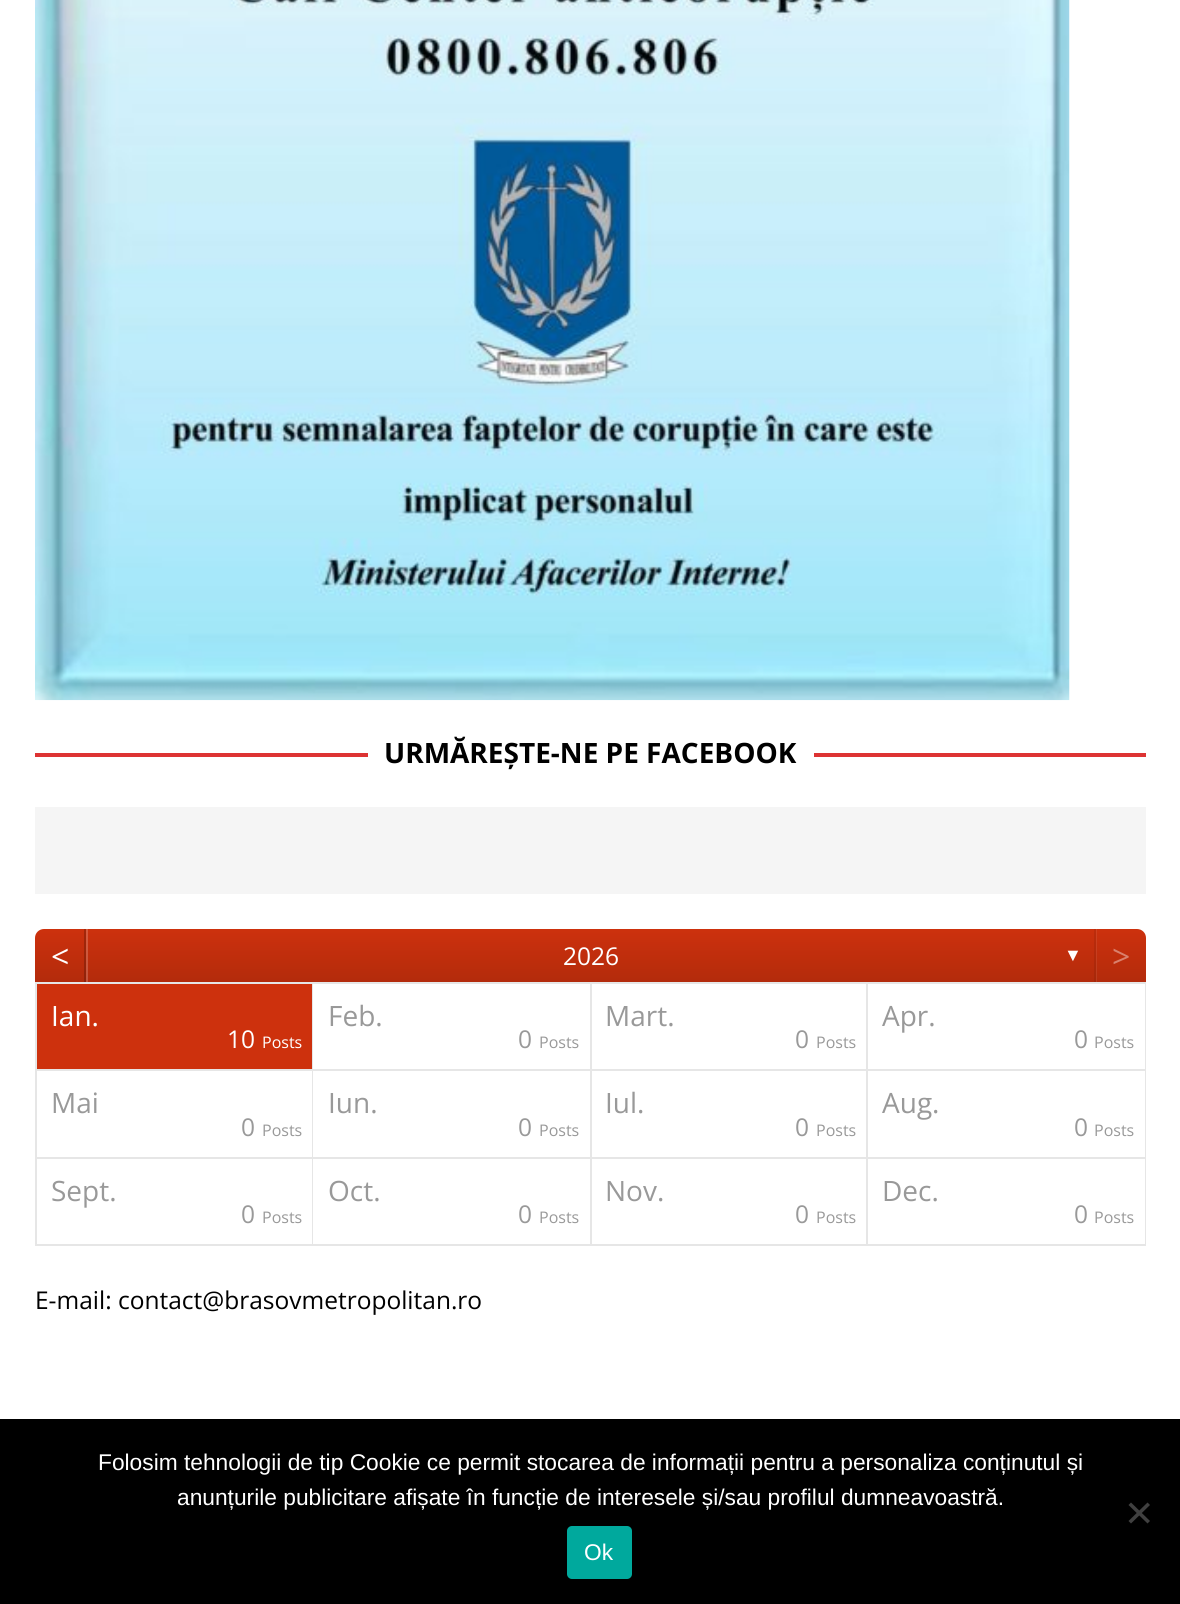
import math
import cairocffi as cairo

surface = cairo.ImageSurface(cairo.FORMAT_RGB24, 1180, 1604)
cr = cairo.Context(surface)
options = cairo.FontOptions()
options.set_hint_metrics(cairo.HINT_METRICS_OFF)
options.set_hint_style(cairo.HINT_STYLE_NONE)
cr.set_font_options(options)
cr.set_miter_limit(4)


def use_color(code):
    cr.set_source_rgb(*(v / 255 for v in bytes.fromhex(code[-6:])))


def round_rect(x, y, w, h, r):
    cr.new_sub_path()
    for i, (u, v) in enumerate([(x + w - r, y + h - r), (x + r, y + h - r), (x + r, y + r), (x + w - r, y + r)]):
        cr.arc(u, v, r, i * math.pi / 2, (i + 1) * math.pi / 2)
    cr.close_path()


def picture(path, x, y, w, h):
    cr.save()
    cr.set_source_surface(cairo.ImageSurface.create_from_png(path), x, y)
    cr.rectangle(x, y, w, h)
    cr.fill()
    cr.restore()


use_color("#ffffff")
cr.paint()
picture("img1.png", 35, 0, 1035, 701)
use_color("#dd3333")
cr.rectangle(35, 753, 1111, 4)
cr.fill()
use_color("#ffffff")
cr.rectangle(368, 753, 446, 4)
cr.fill()
cr.select_font_face("Open Sans", cairo.FONT_SLANT_NORMAL, cairo.FONT_WEIGHT_BOLD)
cr.set_font_size(28)
use_color("#000000")
cr.move_to(384, 763)
cr.show_text("URMĂREȘTE-NE PE FACEBOOK")
use_color("#f5f5f5")
cr.rectangle(35, 807, 1111, 87)
cr.fill()
gradient = cairo.LinearGradient(591, 929, 591, 982)
gradient.add_color_stop_rgba(0, 0.804, 0.192, 0.051, 1)
gradient.add_color_stop_rgba(1, 0.702, 0.169, 0.047, 1)
cr.set_source(gradient)
cr.new_path()
cr.move_to(44, 929)
cr.line_to(1137, 929)
cr.curve_to(1142, 929, 1146, 933, 1146, 938)
cr.line_to(1146, 982)
cr.line_to(35, 982)
cr.line_to(35, 938)
cr.curve_to(35, 933, 39, 929, 44, 929)
cr.close_path()
cr.fill()
cr.set_source_rgba(0, 0, 0, 0.2)
cr.rectangle(84, 929, 2, 53)
cr.fill()
cr.set_source_rgba(1, 1, 1, 0.2)
cr.rectangle(86, 929, 2, 53)
cr.fill()
cr.select_font_face("Open Sans")
cr.set_font_size(32)
use_color("#ffffff")
cr.move_to(51, 968)
cr.show_text("<")
cr.set_font_size(24.5)
cr.move_to(563, 965)
cr.show_text("2026")
cr.select_font_face("Liberation Sans")
cr.set_font_size(18)
cr.move_to(1064, 961)
cr.show_text("▼")
cr.set_source_rgba(1, 1, 1, 0.08)
cr.rectangle(1096, 929, 1, 53)
cr.fill()
cr.set_source_rgba(0, 0, 0, 0.08)
cr.rectangle(1094, 929, 2, 53)
cr.fill()
cr.select_font_face("Open Sans")
cr.set_font_size(32)
use_color("#d9816d")
cr.move_to(1112, 968)
cr.show_text(">")
use_color("#e6e6e6")
cr.rectangle(35, 982, 1111, 2)
cr.fill()
cr.rectangle(1145, 982, 1, 264)
cr.fill()
cr.rectangle(35, 982, 2, 264)
cr.fill()
use_color("#cd310d")
cr.rectangle(37, 984, 275, 85)
cr.fill()
use_color("#e6e6e6")
cr.rectangle(312, 984, 1, 262)
cr.fill()
cr.rectangle(37, 1069, 276, 2)
cr.fill()
cr.set_font_size(28)
use_color("#ffffff")
cr.move_to(51, 1026)
cr.show_text("Ian.")
cr.set_font_size(24.5)
cr.move_to(227, 1048)
cr.show_text("10")
cr.set_font_size(16)
cr.move_to(262, 1048)
cr.show_text("Posts")
use_color("#e6e6e6")
cr.rectangle(590, 984, 2, 262)
cr.fill()
cr.rectangle(313, 1069, 279, 2)
cr.fill()
cr.set_font_size(28)
use_color("#999999")
cr.move_to(328, 1026)
cr.show_text("Feb.")
cr.set_font_size(24.5)
cr.move_to(518, 1048)
cr.show_text("0")
cr.set_font_size(16)
cr.move_to(539, 1048)
cr.show_text("Posts")
use_color("#e6e6e6")
cr.rectangle(866, 984, 2, 262)
cr.fill()
cr.rectangle(592, 1069, 553, 2)
cr.fill()
cr.set_font_size(28)
use_color("#999999")
cr.move_to(605, 1026)
cr.show_text("Mart.")
cr.set_font_size(24.5)
cr.move_to(795, 1048)
cr.show_text("0")
cr.set_font_size(16)
cr.move_to(816, 1048)
cr.show_text("Posts")
cr.set_font_size(28)
cr.move_to(882, 1026)
cr.show_text("Apr.")
cr.set_font_size(24.5)
cr.move_to(1074, 1048)
cr.show_text("0")
cr.set_font_size(16)
cr.move_to(1094, 1048)
cr.show_text("Posts")
use_color("#e6e6e6")
cr.rectangle(37, 1157, 1108, 2)
cr.fill()
cr.set_font_size(28)
use_color("#999999")
cr.move_to(51, 1113)
cr.show_text("Mai")
cr.set_font_size(24.5)
cr.move_to(241, 1136)
cr.show_text("0")
cr.set_font_size(16)
cr.move_to(262, 1136)
cr.show_text("Posts")
cr.set_font_size(28)
cr.move_to(328, 1113)
cr.show_text("Iun.")
cr.set_font_size(24.5)
cr.move_to(518, 1136)
cr.show_text("0")
cr.set_font_size(16)
cr.move_to(539, 1136)
cr.show_text("Posts")
cr.set_font_size(28)
cr.move_to(605, 1113)
cr.show_text("Iul.")
cr.set_font_size(24.5)
cr.move_to(795, 1136)
cr.show_text("0")
cr.set_font_size(16)
cr.move_to(816, 1136)
cr.show_text("Posts")
cr.set_font_size(28)
cr.move_to(882, 1113)
cr.show_text("Aug.")
cr.set_font_size(24.5)
cr.move_to(1074, 1136)
cr.show_text("0")
cr.set_font_size(16)
cr.move_to(1094, 1136)
cr.show_text("Posts")
use_color("#e6e6e6")
cr.rectangle(37, 1244, 1108, 2)
cr.fill()
cr.set_font_size(28)
use_color("#999999")
cr.move_to(51, 1201)
cr.show_text("Sept.")
cr.set_font_size(24.5)
cr.move_to(241, 1223)
cr.show_text("0")
cr.set_font_size(16)
cr.move_to(262, 1223)
cr.show_text("Posts")
cr.set_font_size(28)
cr.move_to(328, 1201)
cr.show_text("Oct.")
cr.set_font_size(24.5)
cr.move_to(518, 1223)
cr.show_text("0")
cr.set_font_size(16)
cr.move_to(539, 1223)
cr.show_text("Posts")
cr.set_font_size(28)
cr.move_to(605, 1201)
cr.show_text("Nov.")
cr.set_font_size(24.5)
cr.move_to(795, 1223)
cr.show_text("0")
cr.set_font_size(16)
cr.move_to(816, 1223)
cr.show_text("Posts")
cr.set_font_size(28)
cr.move_to(882, 1201)
cr.show_text("Dec.")
cr.set_font_size(24.5)
cr.move_to(1074, 1223)
cr.show_text("0")
cr.set_font_size(16)
cr.move_to(1094, 1223)
cr.show_text("Posts")
cr.set_font_size(24.5)
use_color("#000000")
cr.move_to(35, 1309)
cr.show_text("E-mail: contact@brasovmetropolitan.ro")
cr.rectangle(0, 1419, 1180, 185)
cr.fill()
cr.select_font_face("Liberation Sans")
cr.set_font_size(22.75)
use_color("#ffffff")
cr.move_to(98, 1470)
cr.show_text("Folosim tehnologii de tip Cookie ce permit stocarea de informații pentru a personaliza conținutul și")
cr.move_to(177, 1505)
cr.show_text("anunțurile publicitare afișate în funcție de interesele și/sau profilul dumneavoastră.")
use_color("#404040")
cr.new_path()
cr.move_to(1147.5, 1502.5)
cr.line_to(1150, 1505)
cr.line_to(1131, 1523.5)
cr.line_to(1128.5, 1521)
cr.close_path()
cr.fill()
cr.new_path()
cr.move_to(1128.5, 1505)
cr.line_to(1131, 1502.5)
cr.line_to(1150, 1521)
cr.line_to(1147.5, 1523.5)
cr.close_path()
cr.fill()
use_color("#00a99d")
round_rect(567, 1526, 65, 53, 5)
cr.fill()
use_color("#ffffff")
cr.move_to(584, 1560)
cr.show_text("Ok")
surface.write_to_png("result.png")
